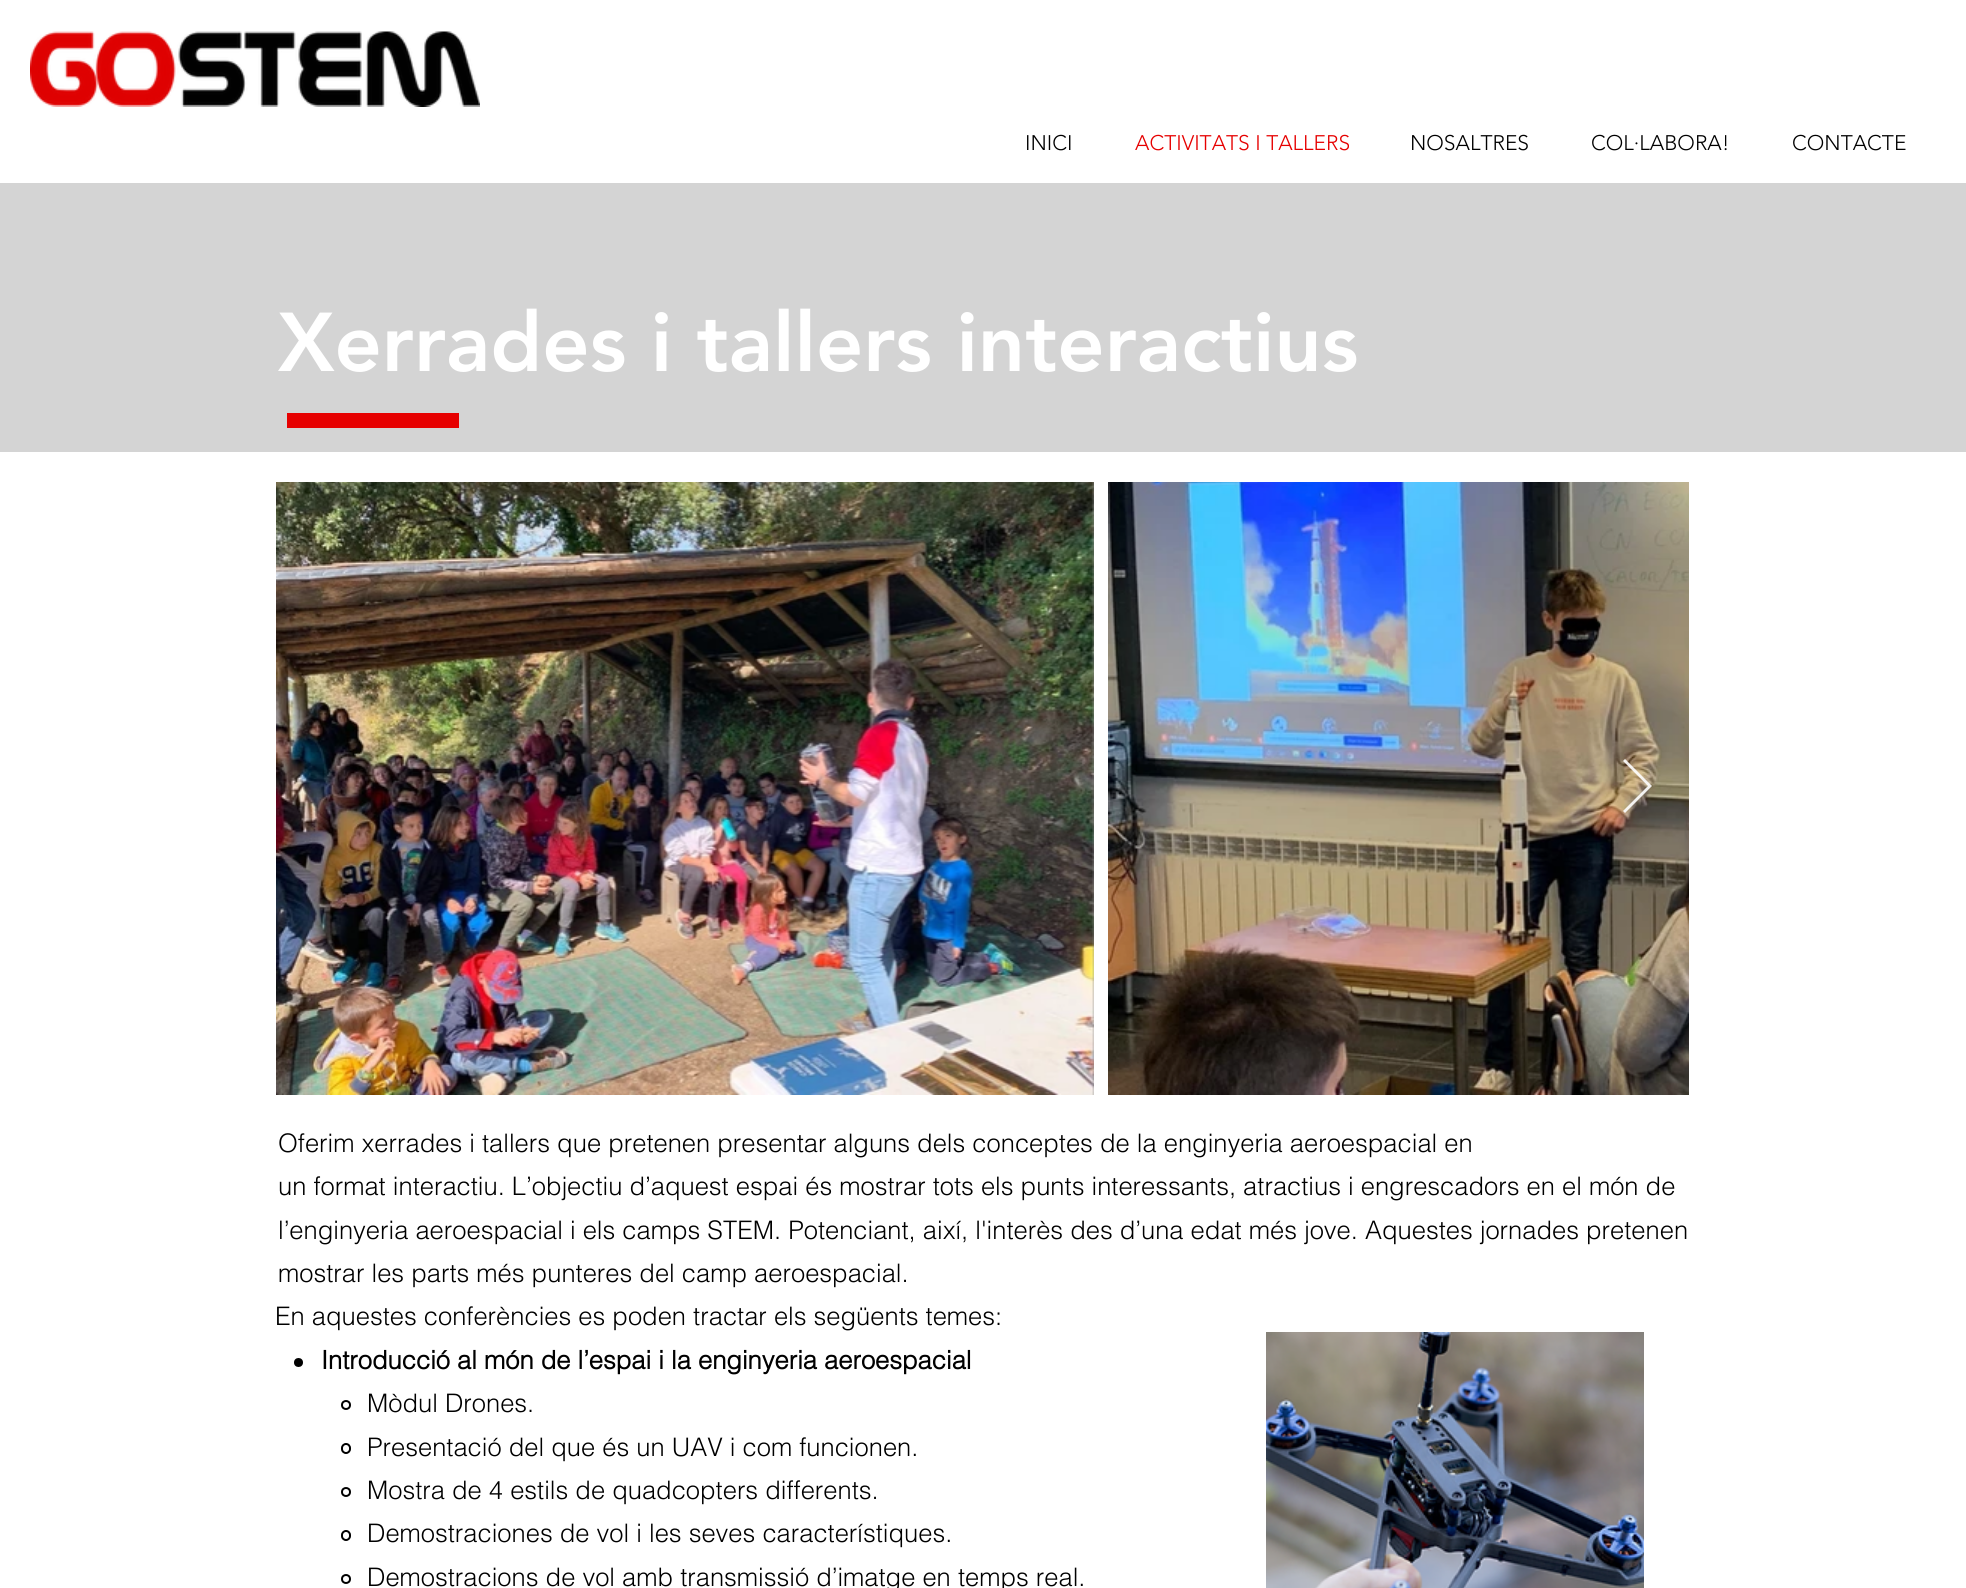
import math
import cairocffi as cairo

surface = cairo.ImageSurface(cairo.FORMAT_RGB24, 1966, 1588)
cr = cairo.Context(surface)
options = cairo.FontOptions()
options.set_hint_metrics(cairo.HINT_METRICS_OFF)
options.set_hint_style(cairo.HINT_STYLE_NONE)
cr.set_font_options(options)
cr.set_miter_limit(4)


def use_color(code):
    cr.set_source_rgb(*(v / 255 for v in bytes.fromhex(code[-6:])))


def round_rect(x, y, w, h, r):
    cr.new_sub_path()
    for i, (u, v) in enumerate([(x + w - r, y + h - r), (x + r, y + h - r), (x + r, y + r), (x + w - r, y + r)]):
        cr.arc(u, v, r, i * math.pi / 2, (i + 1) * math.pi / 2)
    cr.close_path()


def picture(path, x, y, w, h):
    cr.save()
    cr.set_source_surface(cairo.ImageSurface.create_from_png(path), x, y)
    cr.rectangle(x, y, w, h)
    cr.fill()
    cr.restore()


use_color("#d4d4d4")
cr.paint()
use_color("#ffffff")
cr.rectangle(0, 0, 1966, 183)
cr.fill()
picture("img1.png", 30, 31, 450, 76)
cr.select_font_face("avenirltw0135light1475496 Light")
cr.set_font_size(21)
use_color("#000000")
cr.move_to(1025, 150)
cr.show_text("INICI")
use_color("#e60000")
cr.move_to(1135, 150)
cr.show_text("ACTIVITATS I TALLERS")
use_color("#000000")
cr.move_to(1410, 150)
cr.show_text("NOSALTRES")
cr.move_to(1591, 150)
cr.show_text("COL·LABORA!")
cr.move_to(1792, 150)
cr.show_text("CONTACTE")
cr.select_font_face("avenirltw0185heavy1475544 Black")
cr.set_font_size(82.5)
use_color("#ffffff")
cr.move_to(278, 371)
cr.show_text("Xerrades i tallers interactius")
use_color("#e60000")
cr.rectangle(287, 413, 172, 15)
cr.fill()
use_color("#ffffff")
cr.rectangle(0, 452, 1966, 1136)
cr.fill()
use_color("#909090")
cr.rectangle(1092, 482, 2, 613)
cr.fill()
picture("img2.png", 276, 482, 818, 613)
picture("img3.png", 1108, 482, 581, 613)
cr.set_source_rgba(1, 1, 1, 0.9)
cr.new_path()
cr.move_to(1623, 761)
cr.line_to(1625, 759)
cr.line_to(1652, 786)
cr.line_to(1625, 813)
cr.line_to(1623, 811)
cr.line_to(1648, 786)
cr.close_path()
cr.fill()
cr.select_font_face("helvetica Light")
cr.set_font_size(25.5)
use_color("#000000")
cr.move_to(278, 1152)
cr.show_text("Oferim xerrades i tallers que pretenen presentar alguns dels conceptes de la enginyeria aeroespacial en")
cr.move_to(278, 1195)
cr.show_text("un format interactiu. L’objectiu d’aquest espai és mostrar tots els punts interessants, atractius i engrescadors en el món de")
cr.move_to(278, 1239)
cr.show_text("l’enginyeria aeroespacial i els camps STEM. Potenciant, així, l'interès des d’una edat més jove. Aquestes jornades pretenen")
cr.move_to(278, 1282)
cr.show_text("mostrar les parts més punteres del camp aeroespacial.")
cr.move_to(275, 1325)
cr.show_text("En aquestes conferències es poden tractar els següents temes:")
cr.new_path()
cr.arc(298.5, 1362.5, 4.5, 0, 2 * math.pi)
cr.fill()
cr.select_font_face("helvetica", cairo.FONT_SLANT_NORMAL, cairo.FONT_WEIGHT_BOLD)
cr.move_to(321, 1369)
cr.show_text("Introducció al món de l’espai i la enginyeria aeroespacial")
cr.new_path()
cr.arc(346, 1405, 4, 0, 2 * math.pi)
cr.stroke()
cr.select_font_face("helvetica Light")
cr.move_to(367, 1412)
cr.show_text("Mòdul Drones.")
round_rect(342, 1444, 8, 9, 4)
cr.stroke()
cr.move_to(367, 1456)
cr.show_text("Presentació del que és un UAV i com funcionen.")
cr.new_path()
cr.arc(346, 1492, 4, 0, 2 * math.pi)
cr.stroke()
cr.move_to(367, 1499)
cr.show_text("Mostra de 4 estils de quadcopters differents.")
round_rect(342, 1531, 8, 9, 4)
cr.stroke()
cr.move_to(367, 1542)
cr.show_text("Demostraciones de vol i les seves característiques.")
cr.new_path()
cr.arc(346, 1579, 4, 0, 2 * math.pi)
cr.stroke()
cr.move_to(367, 1586)
cr.show_text("Demostracions de vol amb transmissió d’imatge en temps real.")
picture("img4.png", 1266, 1332, 378, 256)
surface.write_to_png("result.png")
